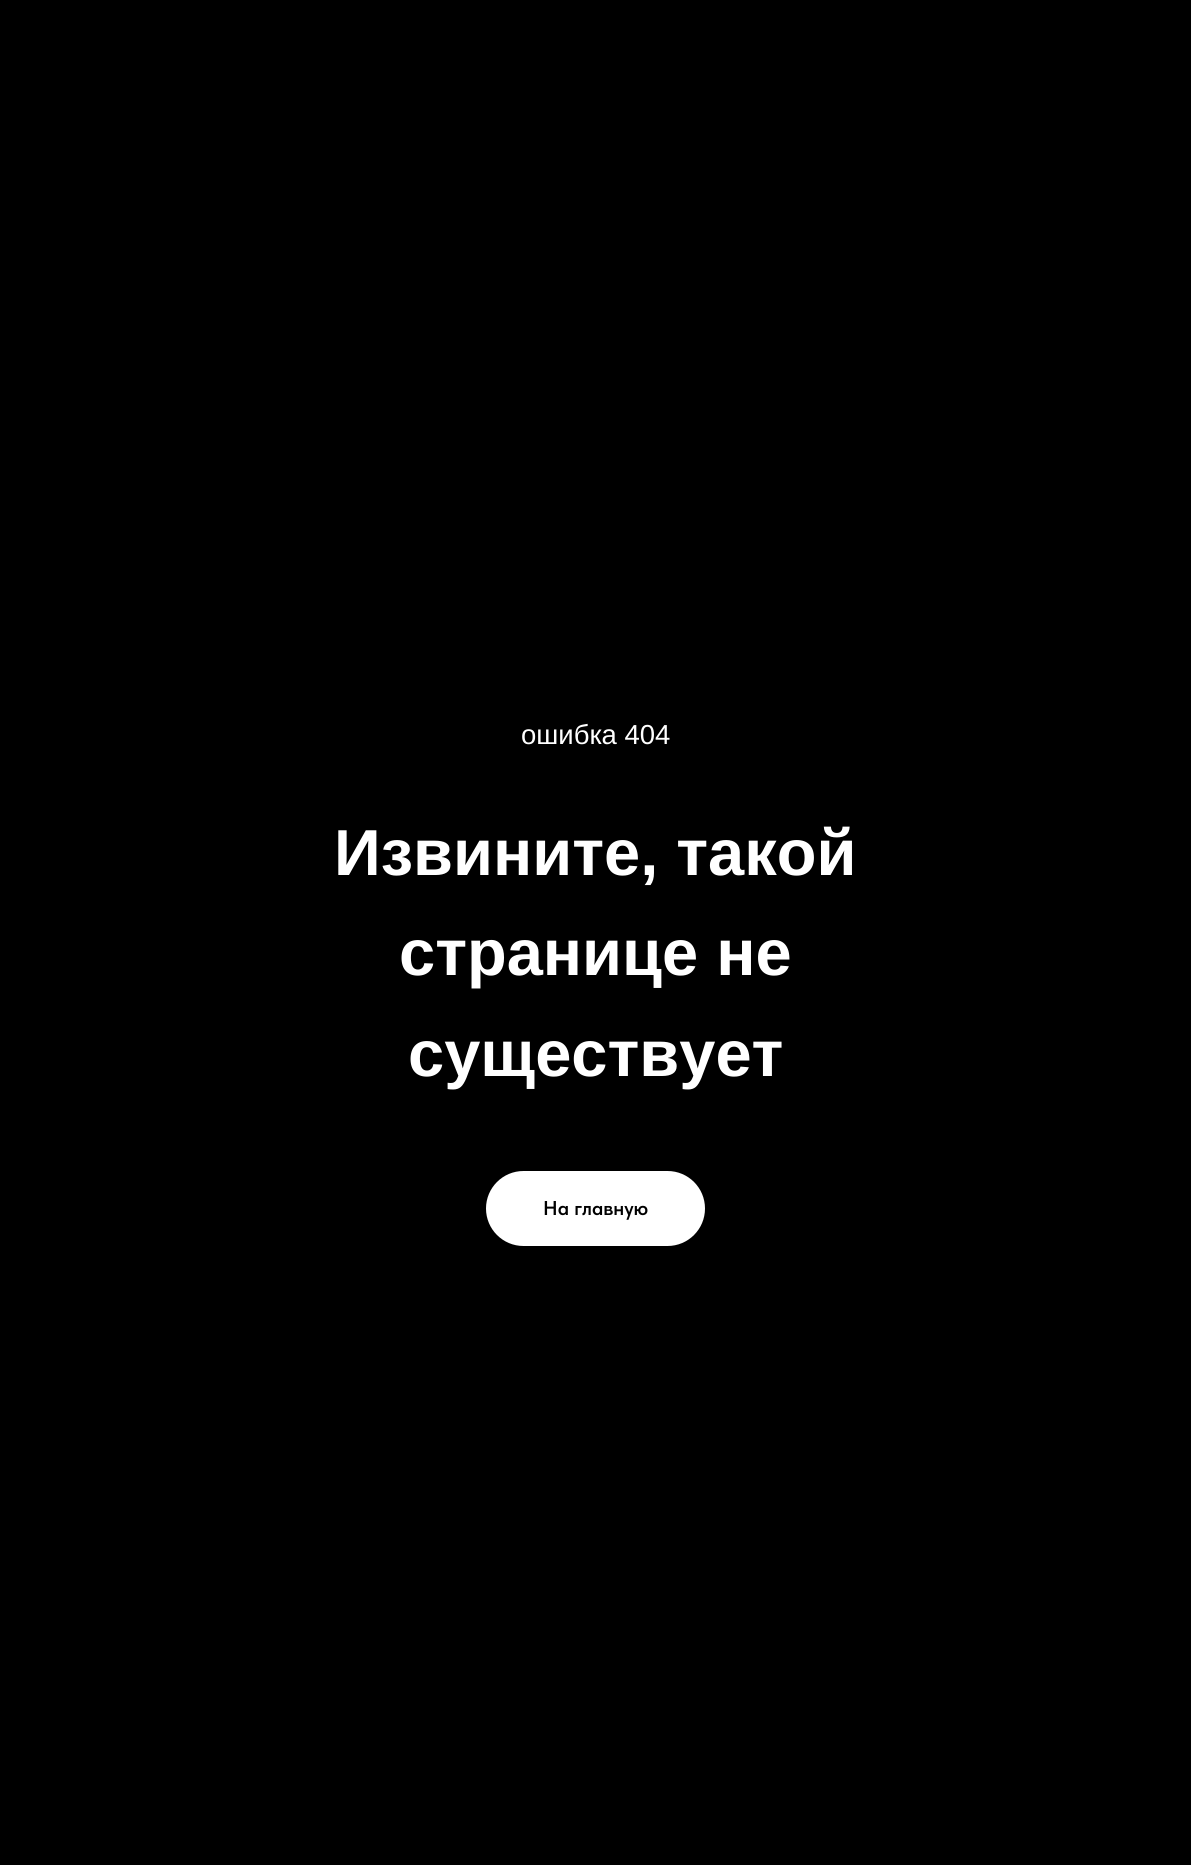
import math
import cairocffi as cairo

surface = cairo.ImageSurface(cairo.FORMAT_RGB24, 1191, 1865)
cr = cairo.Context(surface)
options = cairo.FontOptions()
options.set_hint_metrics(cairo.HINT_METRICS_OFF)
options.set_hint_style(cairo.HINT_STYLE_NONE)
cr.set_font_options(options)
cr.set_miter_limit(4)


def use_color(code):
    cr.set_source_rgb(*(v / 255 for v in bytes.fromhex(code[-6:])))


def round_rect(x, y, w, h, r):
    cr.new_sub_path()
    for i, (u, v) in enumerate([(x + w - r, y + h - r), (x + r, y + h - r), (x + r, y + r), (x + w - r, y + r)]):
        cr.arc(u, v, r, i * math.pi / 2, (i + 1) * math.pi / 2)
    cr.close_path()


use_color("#000000")
cr.paint()
cr.select_font_face("Liberation Sans")
cr.set_font_size(27.5)
use_color("#ffffff")
cr.move_to(521, 744)
cr.show_text("ошибка 404")
cr.select_font_face("Liberation Sans", cairo.FONT_SLANT_NORMAL, cairo.FONT_WEIGHT_BOLD)
cr.set_font_size(65)
cr.move_to(334, 875)
cr.show_text("Извините, такой")
cr.move_to(399, 975)
cr.show_text("странице не")
cr.move_to(408, 1076)
cr.show_text("существует")
round_rect(486, 1171, 219, 75, 37.5)
cr.fill()
cr.select_font_face("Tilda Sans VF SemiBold")
cr.set_font_size(20)
use_color("#000000")
cr.move_to(543, 1215)
cr.show_text("На главную")
surface.write_to_png("result.png")
